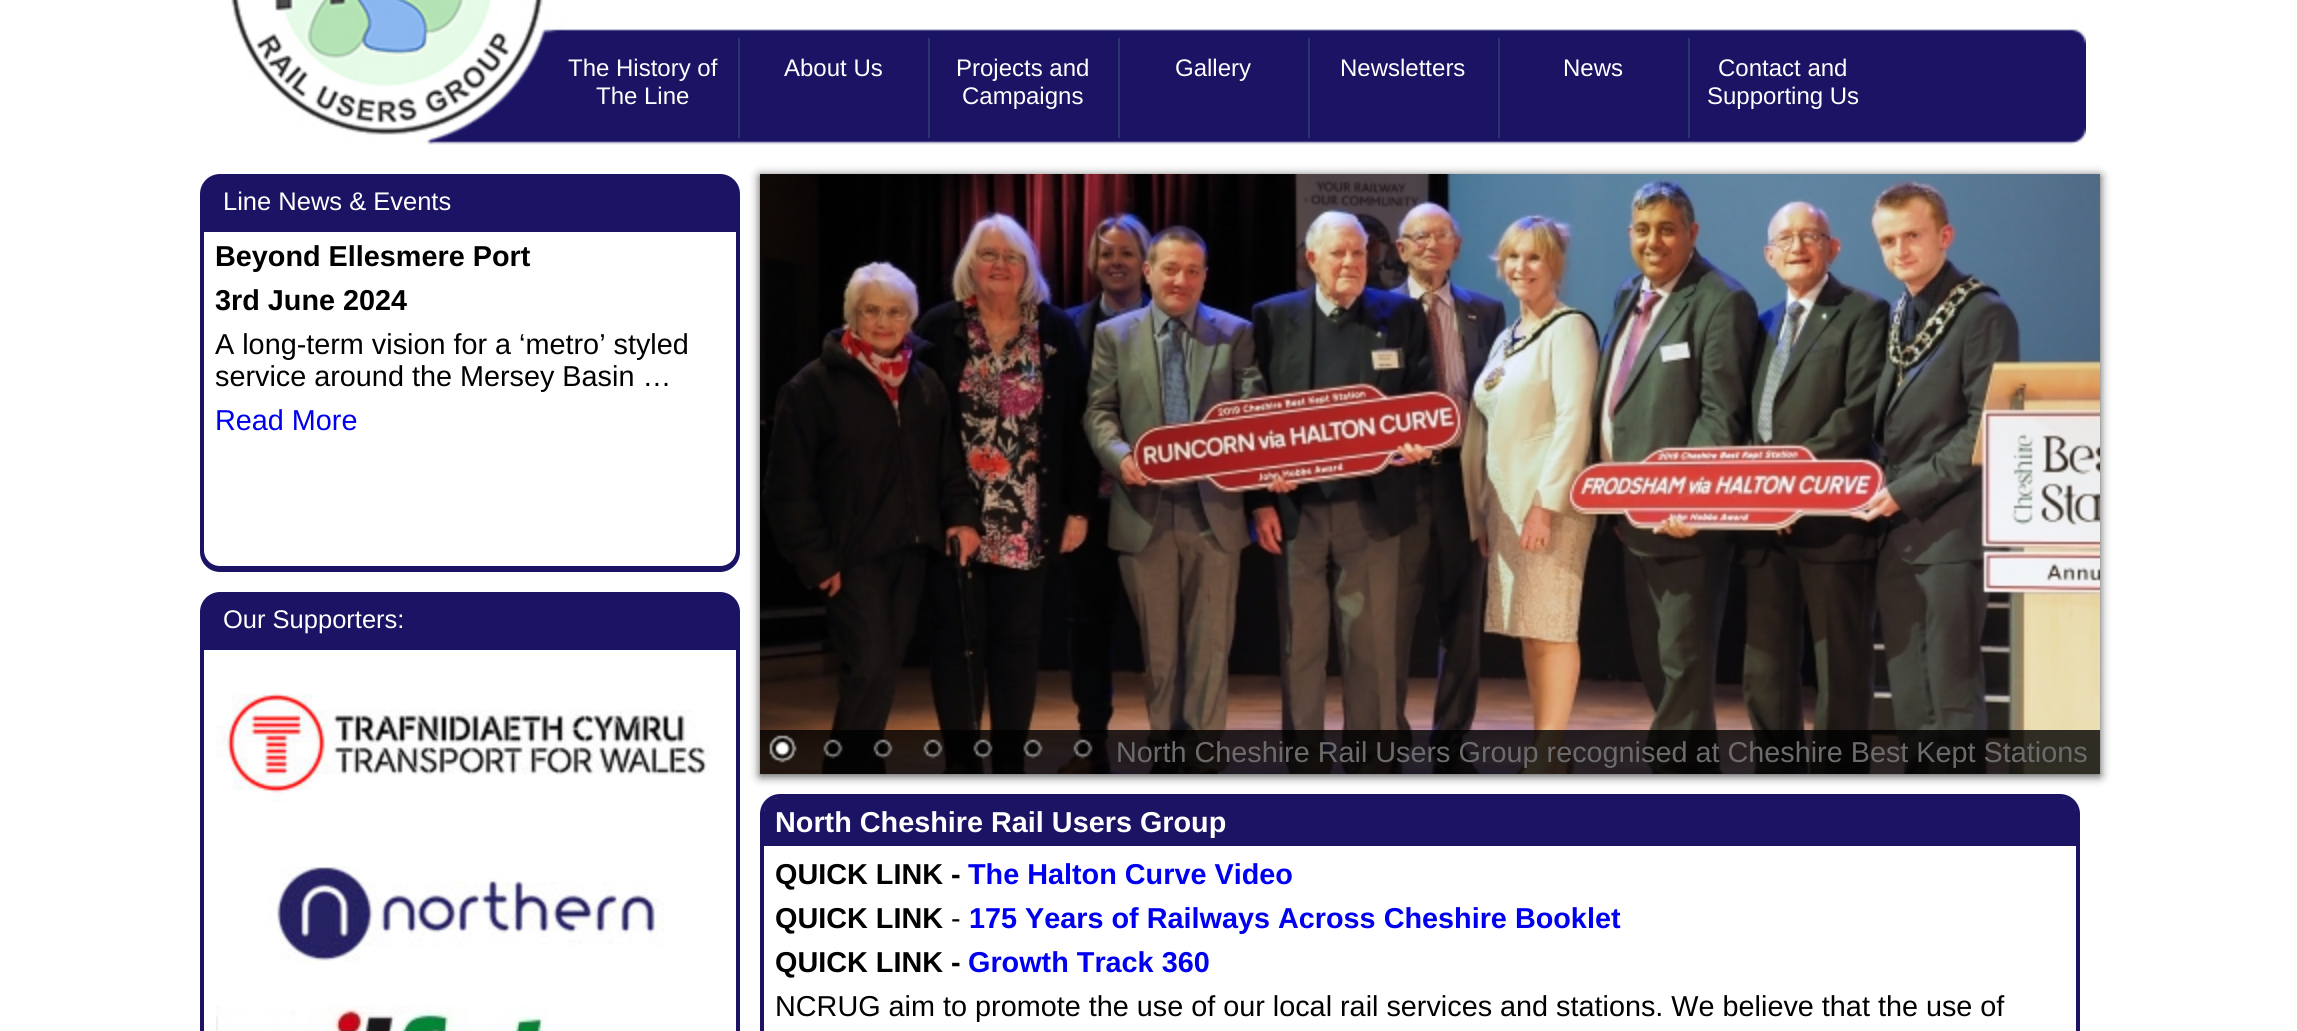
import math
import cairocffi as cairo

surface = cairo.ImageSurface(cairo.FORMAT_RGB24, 2297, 1031)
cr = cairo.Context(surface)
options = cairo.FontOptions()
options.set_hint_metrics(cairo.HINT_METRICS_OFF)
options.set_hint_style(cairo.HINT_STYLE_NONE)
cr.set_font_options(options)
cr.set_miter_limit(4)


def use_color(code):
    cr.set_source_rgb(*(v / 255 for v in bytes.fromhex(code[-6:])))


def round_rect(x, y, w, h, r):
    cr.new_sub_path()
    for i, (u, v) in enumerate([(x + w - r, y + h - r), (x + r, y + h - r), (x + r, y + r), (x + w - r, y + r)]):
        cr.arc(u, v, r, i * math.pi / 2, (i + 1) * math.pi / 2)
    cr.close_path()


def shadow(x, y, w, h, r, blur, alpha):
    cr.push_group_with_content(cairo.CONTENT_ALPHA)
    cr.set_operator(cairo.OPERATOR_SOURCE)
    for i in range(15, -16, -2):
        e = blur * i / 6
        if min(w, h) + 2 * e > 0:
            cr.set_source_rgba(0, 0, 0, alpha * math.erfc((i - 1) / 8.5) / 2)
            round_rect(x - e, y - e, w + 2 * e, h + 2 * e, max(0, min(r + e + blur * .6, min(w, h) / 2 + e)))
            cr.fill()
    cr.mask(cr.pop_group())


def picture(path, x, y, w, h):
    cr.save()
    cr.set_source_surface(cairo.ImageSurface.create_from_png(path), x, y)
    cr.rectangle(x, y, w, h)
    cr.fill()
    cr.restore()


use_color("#ffffff")
cr.paint()
picture("img1.png", 231, 0, 1855, 145)
use_color("#2b346f")
cr.rectangle(738, 38, 2, 100)
cr.fill()
cr.select_font_face("Liberation Sans")
cr.set_font_size(24)
use_color("#ffffff")
cr.move_to(568, 76)
cr.show_text("The History of")
cr.move_to(596, 104)
cr.show_text("The Line")
use_color("#2b346f")
cr.rectangle(928, 38, 2, 100)
cr.fill()
use_color("#ffffff")
cr.move_to(784, 76)
cr.show_text("About Us")
use_color("#2b346f")
cr.rectangle(1118, 38, 2, 100)
cr.fill()
use_color("#ffffff")
cr.move_to(956, 76)
cr.show_text("Projects and")
cr.move_to(962, 104)
cr.show_text("Campaigns")
use_color("#2b346f")
cr.rectangle(1308, 38, 2, 100)
cr.fill()
use_color("#ffffff")
cr.move_to(1175, 76)
cr.show_text("Gallery")
use_color("#2b346f")
cr.rectangle(1498, 38, 2, 100)
cr.fill()
use_color("#ffffff")
cr.move_to(1340, 76)
cr.show_text("Newsletters")
use_color("#2b346f")
cr.rectangle(1688, 38, 2, 100)
cr.fill()
use_color("#ffffff")
cr.move_to(1563, 76)
cr.show_text("News")
cr.move_to(1718, 76)
cr.show_text("Contact and")
cr.move_to(1707, 104)
cr.show_text("Supporting Us")
use_color("#1b1464")
round_rect(200, 174, 540, 398, 20)
cr.fill()
cr.set_font_size(25.5)
use_color("#ffffff")
cr.move_to(223, 210)
cr.show_text("Line News & Events")
cr.new_path()
cr.move_to(204, 232)
cr.line_to(736, 232)
cr.line_to(736, 550)
cr.curve_to(736, 559, 729, 566, 720, 566)
cr.line_to(220, 566)
cr.curve_to(211, 566, 204, 559, 204, 550)
cr.close_path()
cr.fill()
cr.select_font_face("Liberation Sans", cairo.FONT_SLANT_NORMAL, cairo.FONT_WEIGHT_BOLD)
cr.set_font_size(28.8)
use_color("#000000")
cr.move_to(215, 266)
cr.show_text("Beyond Ellesmere Port")
cr.move_to(215, 310)
cr.show_text("3rd June 2024")
cr.select_font_face("Liberation Sans")
cr.move_to(215, 354)
cr.show_text("A long-term vision for a ‘metro’ styled")
cr.move_to(215, 386)
cr.show_text("service around the Mersey Basin …")
use_color("#0000ee")
cr.move_to(215, 430)
cr.show_text("Read More")
use_color("#1b1464")
round_rect(200, 592, 540, 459, 20)
cr.fill()
cr.set_font_size(25.5)
use_color("#ffffff")
cr.move_to(223, 628)
cr.show_text("Our Supporters:")
cr.rectangle(204, 650, 532, 381)
cr.fill()
picture("img2.png", 216, 693, 494, 109)
picture("img3.png", 267, 866, 397, 96)
picture("img4.png", 216, 1006, 332, 25)
use_color("#4a4a4a")
shadow(760, 176, 1340, 600, 0, 5, 1)
picture("img5.png", 760, 174, 1340, 600)
cr.set_source_rgba(0, 0, 0, 0.8)
cr.rectangle(760, 730, 1340, 44)
cr.fill()
picture("img6.png", 769, 735, 28, 28)
picture("img7.png", 823, 739, 20, 20)
picture("img8.png", 873, 739, 20, 20)
picture("img9.png", 923, 739, 20, 20)
picture("img10.png", 973, 739, 20, 20)
picture("img11.png", 1023, 739, 20, 20)
picture("img12.png", 1073, 739, 20, 20)
cr.set_font_size(28.8)
use_color("#6c6b6b")
cr.move_to(1116, 762)
cr.show_text("North Cheshire Rail Users Group recognised at Cheshire Best Kept Stations")
round_rect(762, 796, 1316, 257, 18)
use_color("#1b1464")
cr.set_line_width(4)
cr.stroke()
cr.new_path()
cr.move_to(778, 798)
cr.line_to(2062, 798)
cr.curve_to(2069.5, 798, 2076, 804.5, 2076, 812)
cr.line_to(2076, 846)
cr.line_to(764, 846)
cr.line_to(764, 812)
cr.curve_to(764, 804.5, 770.5, 798, 778, 798)
cr.close_path()
cr.fill()
cr.select_font_face("Liberation Sans", cairo.FONT_SLANT_NORMAL, cairo.FONT_WEIGHT_BOLD)
use_color("#ffffff")
cr.move_to(775, 832)
cr.show_text("North Cheshire Rail Users Group")
use_color("#000000")
cr.move_to(775, 884)
cr.show_text("QUICK LINK -")
use_color("#0000ee")
cr.move_to(968, 884)
cr.show_text("The Halton Curve Video")
use_color("#000000")
cr.move_to(775, 928)
cr.show_text("QUICK LINK")
cr.select_font_face("Liberation Sans")
cr.move_to(951, 928)
cr.show_text("-")
cr.select_font_face("Liberation Sans", cairo.FONT_SLANT_NORMAL, cairo.FONT_WEIGHT_BOLD)
use_color("#0000ee")
cr.move_to(969, 928)
cr.show_text("175 Years of Railways Across Cheshire Booklet")
use_color("#000000")
cr.move_to(775, 972)
cr.show_text("QUICK LINK -")
use_color("#0000ee")
cr.move_to(968, 972)
cr.show_text("Growth Track 360")
cr.select_font_face("Liberation Sans")
use_color("#000000")
cr.move_to(775, 1016)
cr.show_text("NCRUG aim to promote the use of our local rail services and stations. We believe that the use of")
surface.write_to_png("result.png")
